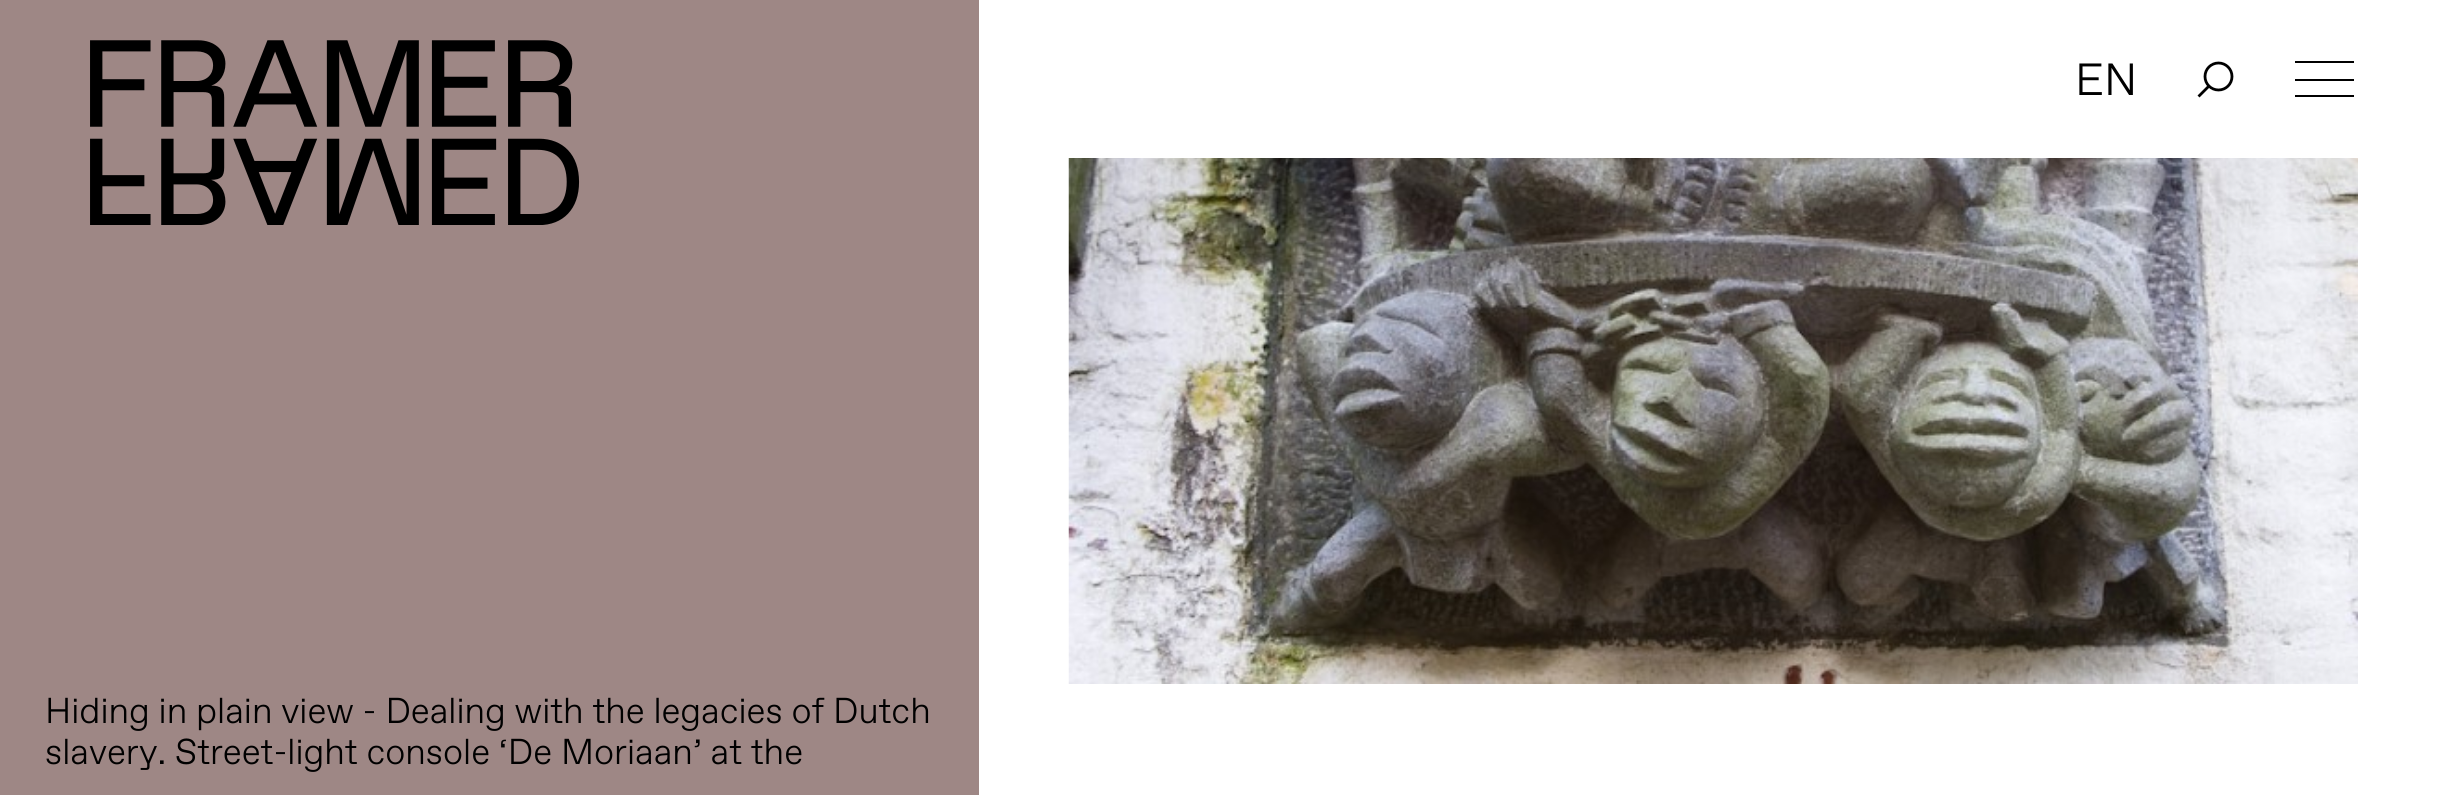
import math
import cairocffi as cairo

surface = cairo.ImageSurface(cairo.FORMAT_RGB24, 2448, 795)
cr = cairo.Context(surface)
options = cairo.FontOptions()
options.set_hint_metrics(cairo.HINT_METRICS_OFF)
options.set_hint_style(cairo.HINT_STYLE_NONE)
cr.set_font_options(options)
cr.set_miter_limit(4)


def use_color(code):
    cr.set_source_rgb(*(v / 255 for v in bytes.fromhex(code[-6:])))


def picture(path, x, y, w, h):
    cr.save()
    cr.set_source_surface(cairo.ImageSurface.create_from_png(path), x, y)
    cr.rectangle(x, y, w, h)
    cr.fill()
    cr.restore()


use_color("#9e8785")
cr.paint()
picture("img1.png", 90, 40, 490, 185)
use_color("#ffffff")
cr.rectangle(979, 0, 1469, 795)
cr.fill()
cr.select_font_face("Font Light")
cr.set_font_size(45)
use_color("#000000")
cr.move_to(2075, 95)
cr.show_text("EN")
cr.new_path()
cr.move_to(2208.5, 86.5)
cr.line_to(2199.5, 95.5)
cr.set_line_width(2.8)
cr.set_line_cap(cairo.LINE_CAP_SQUARE)
cr.stroke()
cr.arc(2218.5, 76.5, 13.5, 0, 2 * math.pi)
cr.set_line_cap(cairo.LINE_CAP_BUTT)
cr.stroke()
cr.rectangle(2295, 61, 59, 2)
cr.fill()
cr.rectangle(2295, 79, 59, 2)
cr.fill()
cr.rectangle(2295, 95, 59, 2)
cr.fill()
cr.set_font_size(36)
cr.move_to(45, 723)
cr.show_text("Hiding in plain view - Dealing with the legacies of Dutch")
cr.move_to(45, 764)
cr.show_text("slavery. Street-light console ‘De Moriaan’ at the")
picture("img2.png", 1068, 158, 1290, 526)
surface.write_to_png("result.png")
